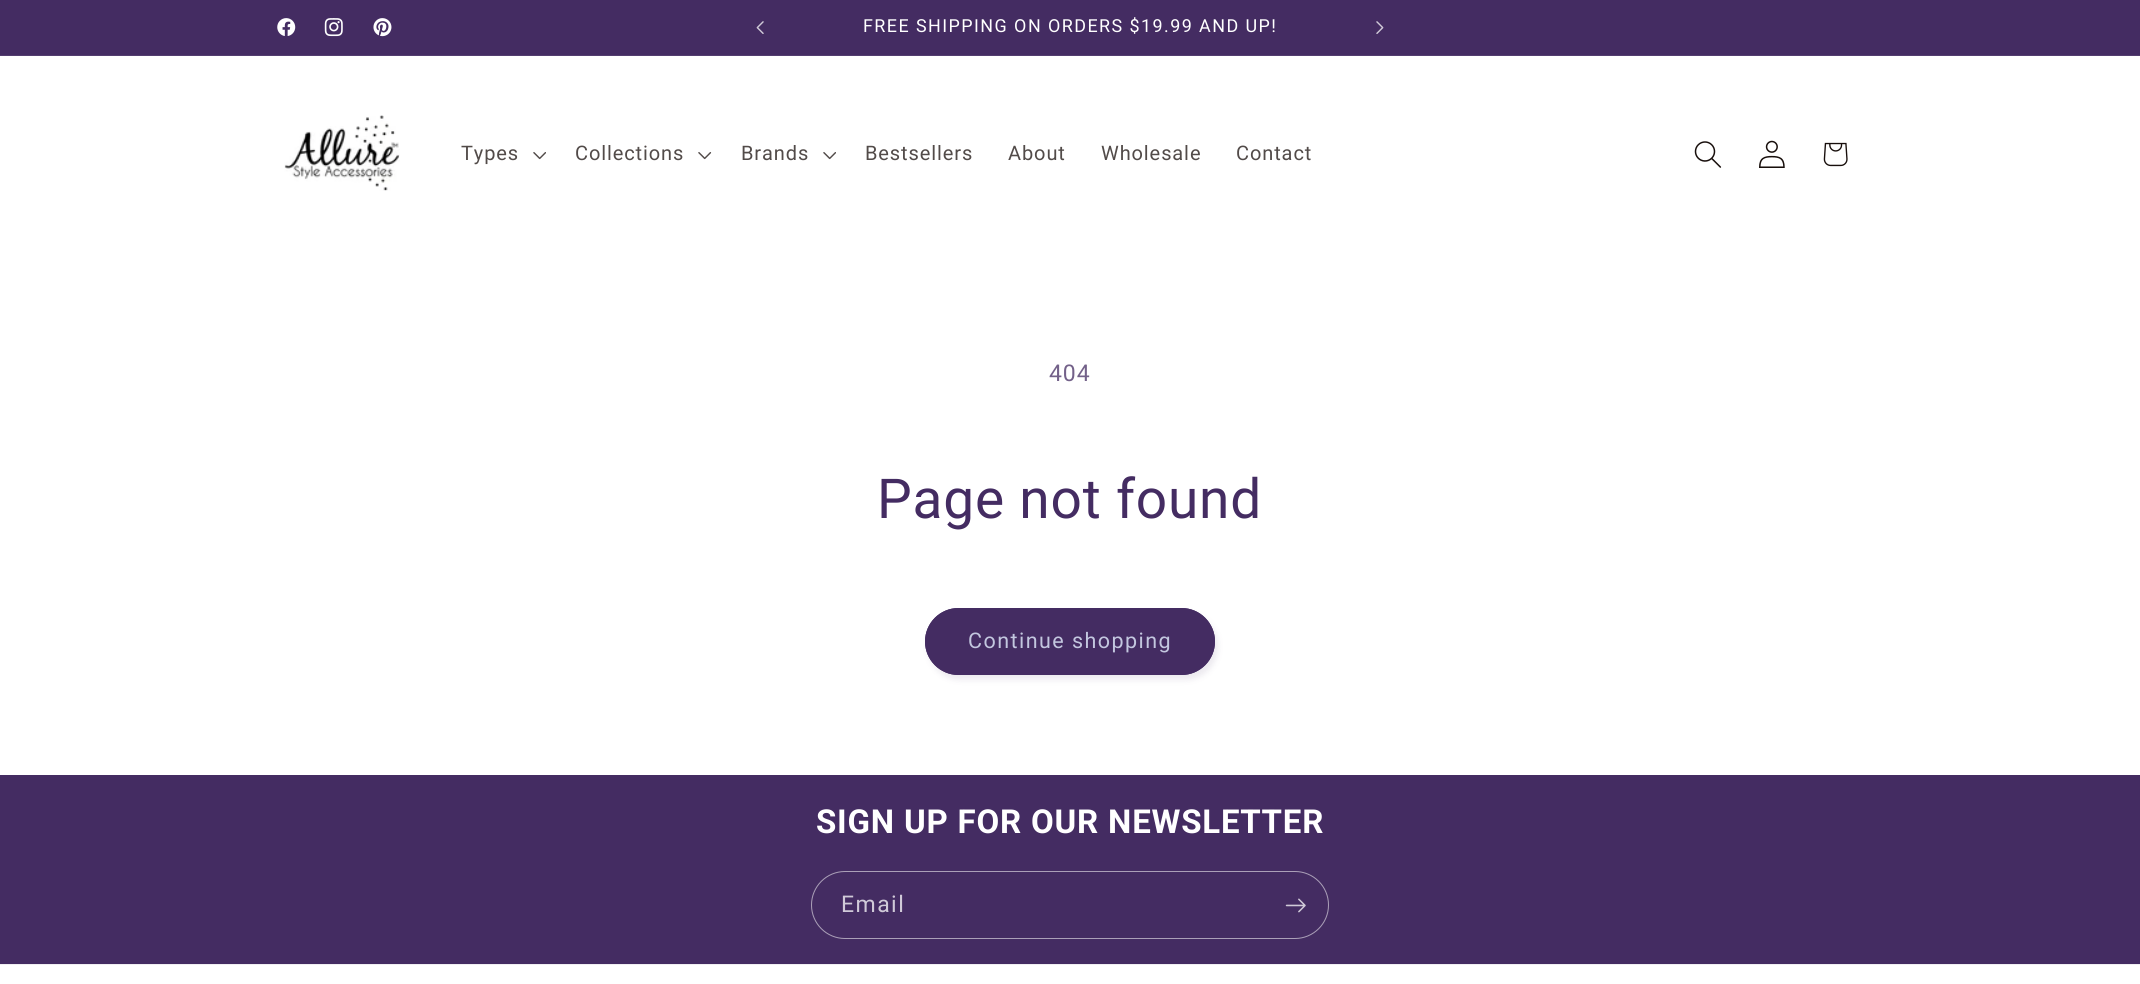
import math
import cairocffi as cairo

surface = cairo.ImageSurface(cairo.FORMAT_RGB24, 2140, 984)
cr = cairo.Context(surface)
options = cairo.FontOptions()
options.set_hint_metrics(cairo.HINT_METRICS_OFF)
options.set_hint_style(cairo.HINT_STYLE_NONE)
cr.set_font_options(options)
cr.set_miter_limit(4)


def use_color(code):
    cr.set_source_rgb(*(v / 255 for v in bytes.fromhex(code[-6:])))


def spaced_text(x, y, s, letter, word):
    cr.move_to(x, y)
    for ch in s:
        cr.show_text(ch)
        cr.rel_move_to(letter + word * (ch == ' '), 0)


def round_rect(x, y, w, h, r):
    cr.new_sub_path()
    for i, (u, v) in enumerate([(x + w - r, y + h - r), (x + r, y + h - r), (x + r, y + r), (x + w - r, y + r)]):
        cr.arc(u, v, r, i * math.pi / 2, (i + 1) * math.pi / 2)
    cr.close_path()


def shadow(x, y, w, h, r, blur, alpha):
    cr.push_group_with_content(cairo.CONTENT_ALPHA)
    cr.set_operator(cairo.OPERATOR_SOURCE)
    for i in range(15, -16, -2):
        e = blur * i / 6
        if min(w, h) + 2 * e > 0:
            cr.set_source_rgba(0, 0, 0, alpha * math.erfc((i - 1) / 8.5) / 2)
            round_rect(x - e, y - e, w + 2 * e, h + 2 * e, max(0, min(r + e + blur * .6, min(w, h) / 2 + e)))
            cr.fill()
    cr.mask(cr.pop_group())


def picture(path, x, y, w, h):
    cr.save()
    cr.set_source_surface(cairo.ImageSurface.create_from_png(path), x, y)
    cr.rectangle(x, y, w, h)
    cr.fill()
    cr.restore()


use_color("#ffffff")
cr.paint()
use_color("#442c62")
cr.rectangle(0, 0, 2140, 55)
cr.fill()
use_color("#533d6f")
cr.rectangle(0, 55, 2140, 1)
cr.fill()
picture("img1.png", 277, 18, 19, 18)
picture("img2.png", 324, 18, 19, 19)
picture("img3.png", 373, 18, 19, 19)
picture("img4.png", 756, 21, 8, 13)
cr.select_font_face("Roboto")
cr.set_font_size(17.9)
use_color("#ffffff")
spaced_text(863, 32, "FREE SHIPPING ON ORDERS $19.99 AND UP!", 1.45, 0)
picture("img5.png", 1376, 21, 8, 13)
picture("img6.png", 284, 115, 116, 76)
cr.set_font_size(20)
use_color("#524b49")
spaced_text(461, 160, "Types", 0.9, 0)
picture("img7.png", 533, 152, 13, 8)
spaced_text(575, 160, "Collections", 0.9, 0)
picture("img8.png", 698, 152, 14, 8)
spaced_text(741, 160, "Brands", 0.9, 0)
picture("img7.png", 823, 152, 13, 8)
spaced_text(865, 160, "Bestsellers", 0.9, 0)
spaced_text(1008, 160, "About", 0.9, 0)
spaced_text(1101, 160, "Wholesale", 0.9, 0)
spaced_text(1236, 160, "Contact", 0.9, 0)
picture("img9.png", 1694, 141, 28, 27)
picture("img10.png", 1759, 140, 26, 28)
picture("img11.png", 1823, 142, 25, 25)
cr.set_font_size(23)
use_color("#736189")
spaced_text(1049, 381, "404", 0.9, 0)
cr.set_font_size(55)
use_color("#442c62")
spaced_text(877, 518, "Page not found", 0.8, 0)
use_color("#442c62")
shadow(928, 613, 290, 67, 33.5, 3, 0.1)
use_color("#442c62")
round_rect(925, 608, 290, 67, 33.5)
cr.fill()
round_rect(925.5, 608.5, 289, 66, 33)
cr.set_line_width(1)
cr.stroke()
cr.set_font_size(21.5)
use_color("#c3c7df")
spaced_text(968, 648, "Continue shopping", 1.45, 0)
use_color("#442c62")
cr.rectangle(0, 775, 2140, 189)
cr.fill()
cr.select_font_face("Roboto", cairo.FONT_SLANT_NORMAL, cairo.FONT_WEIGHT_BOLD)
cr.set_font_size(33)
use_color("#ffffff")
spaced_text(816, 833, "SIGN UP FOR OUR NEWSLETTER", 0.8, 0)
round_rect(811.5, 871.5, 517, 67, 33.5)
use_color("#aba0b8")
cr.stroke()
cr.select_font_face("Roboto")
cr.set_font_size(23)
use_color("#d0cad8")
spaced_text(841, 912, "Email", 1.45, 0)
picture("img12.png", 1285, 898, 21, 15)
use_color("#f0eef2")
cr.rectangle(0, 964, 2140, 1)
cr.fill()
surface.write_to_png("result.png")
